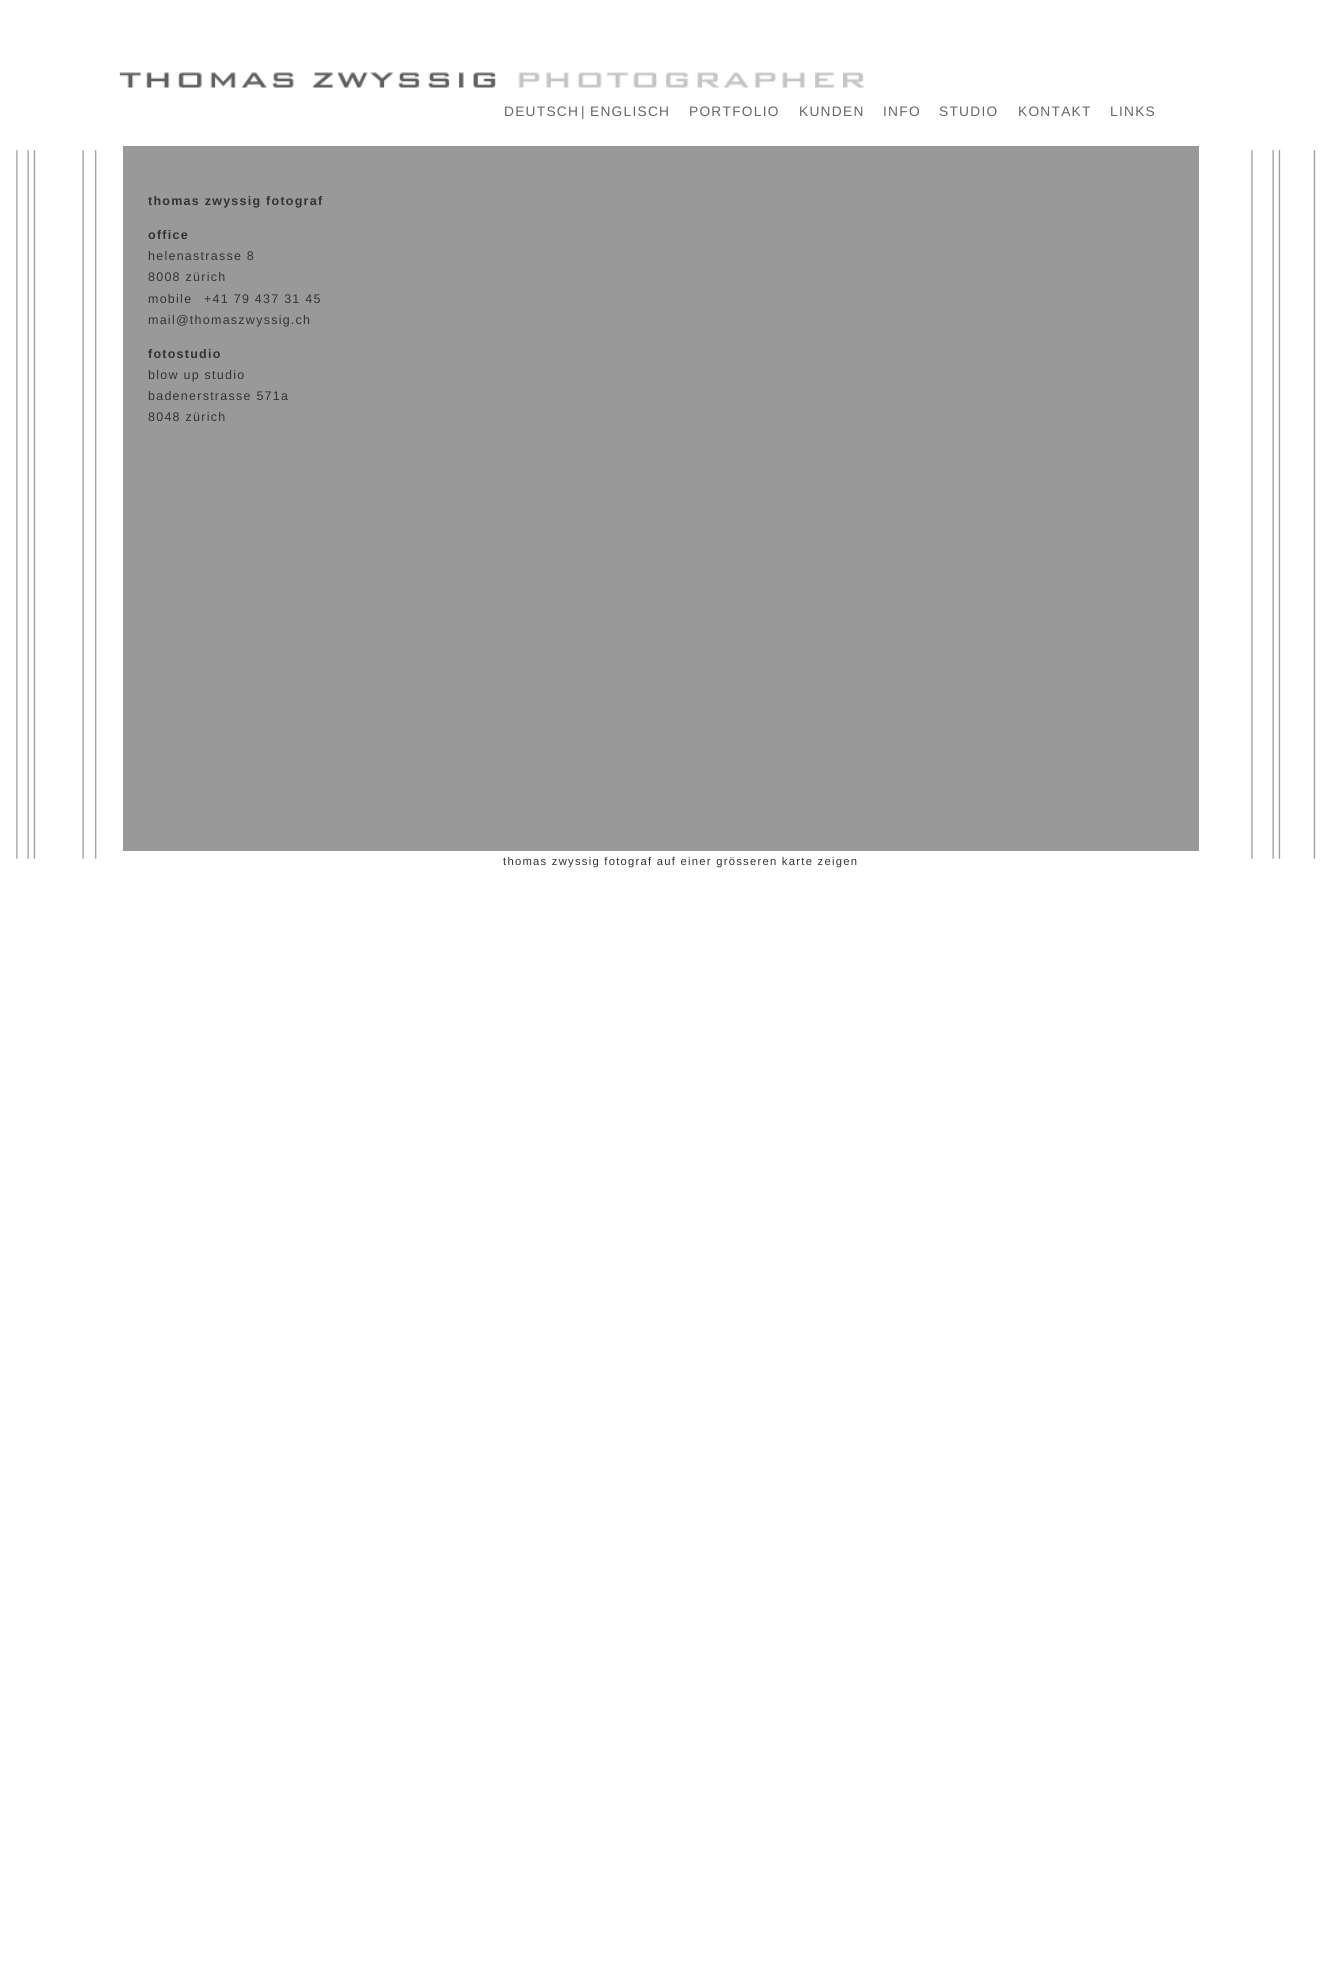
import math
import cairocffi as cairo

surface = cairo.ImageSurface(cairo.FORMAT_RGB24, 1325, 1969)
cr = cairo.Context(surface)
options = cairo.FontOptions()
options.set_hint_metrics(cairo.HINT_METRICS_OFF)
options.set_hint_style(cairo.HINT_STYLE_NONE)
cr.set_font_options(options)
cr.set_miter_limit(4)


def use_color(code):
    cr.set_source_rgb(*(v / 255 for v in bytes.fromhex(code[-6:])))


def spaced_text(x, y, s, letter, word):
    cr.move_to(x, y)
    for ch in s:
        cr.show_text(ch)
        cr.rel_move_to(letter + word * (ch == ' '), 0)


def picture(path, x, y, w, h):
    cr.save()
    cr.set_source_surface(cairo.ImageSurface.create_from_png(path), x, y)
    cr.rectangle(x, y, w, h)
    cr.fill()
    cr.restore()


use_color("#ffffff")
cr.paint()
picture("img1.png", 16, 149, 1300, 710)
picture("img2.png", 119, 72, 746, 16)
cr.select_font_face("Liberation Sans")
cr.set_font_size(13.75)
use_color("#666666")
spaced_text(504, 116, "DEUTSCH", 1.25, 0)
spaced_text(581, 116, "|", 2, 0)
spaced_text(590, 116, "ENGLISCH", 1.25, 0)
spaced_text(689, 116, "PORTFOLIO", 1.25, 0)
spaced_text(799, 116, "KUNDEN", 1.25, 0)
spaced_text(883, 116, "INFO", 1.25, 0)
spaced_text(939, 116, "STUDIO", 1.25, 0)
spaced_text(1018, 116, "KONTAKT", 1.25, 0)
spaced_text(1110, 116, "LINKS", 1.25, 0)
use_color("#999999")
cr.rectangle(123, 146, 1076, 705)
cr.fill()
cr.select_font_face("Liberation Sans", cairo.FONT_SLANT_NORMAL, cairo.FONT_WEIGHT_BOLD)
cr.set_font_size(12.5)
use_color("#333333")
spaced_text(148, 205, "thomas zwyssig fotograf", 1.25, 0)
spaced_text(148, 239, "office", 1.25, 0)
cr.select_font_face("Liberation Sans")
spaced_text(148, 260, "helenastrasse 8", 1.25, 0)
spaced_text(148, 281, "8008 zürich", 1.25, 0)
spaced_text(148, 303, "mobile", 1.25, 0)
spaced_text(204, 303, "+41 79 437 31 45", 1.25, 0)
spaced_text(148, 324, "mail@thomaszwyssig.ch", 1.25, 0)
cr.select_font_face("Liberation Sans", cairo.FONT_SLANT_NORMAL, cairo.FONT_WEIGHT_BOLD)
spaced_text(148, 358, "fotostudio", 1.25, 0)
cr.select_font_face("Liberation Sans")
spaced_text(148, 379, "blow up studio", 1.25, 0)
spaced_text(148, 400, "badenerstrasse 571a", 1.25, 0)
spaced_text(148, 421, "8048 zürich", 1.25, 0)
cr.set_font_size(11.25)
spaced_text(503, 865, "thomas zwyssig fotograf auf einer grösseren karte zeigen", 1.25, 0)
surface.write_to_png("result.png")
